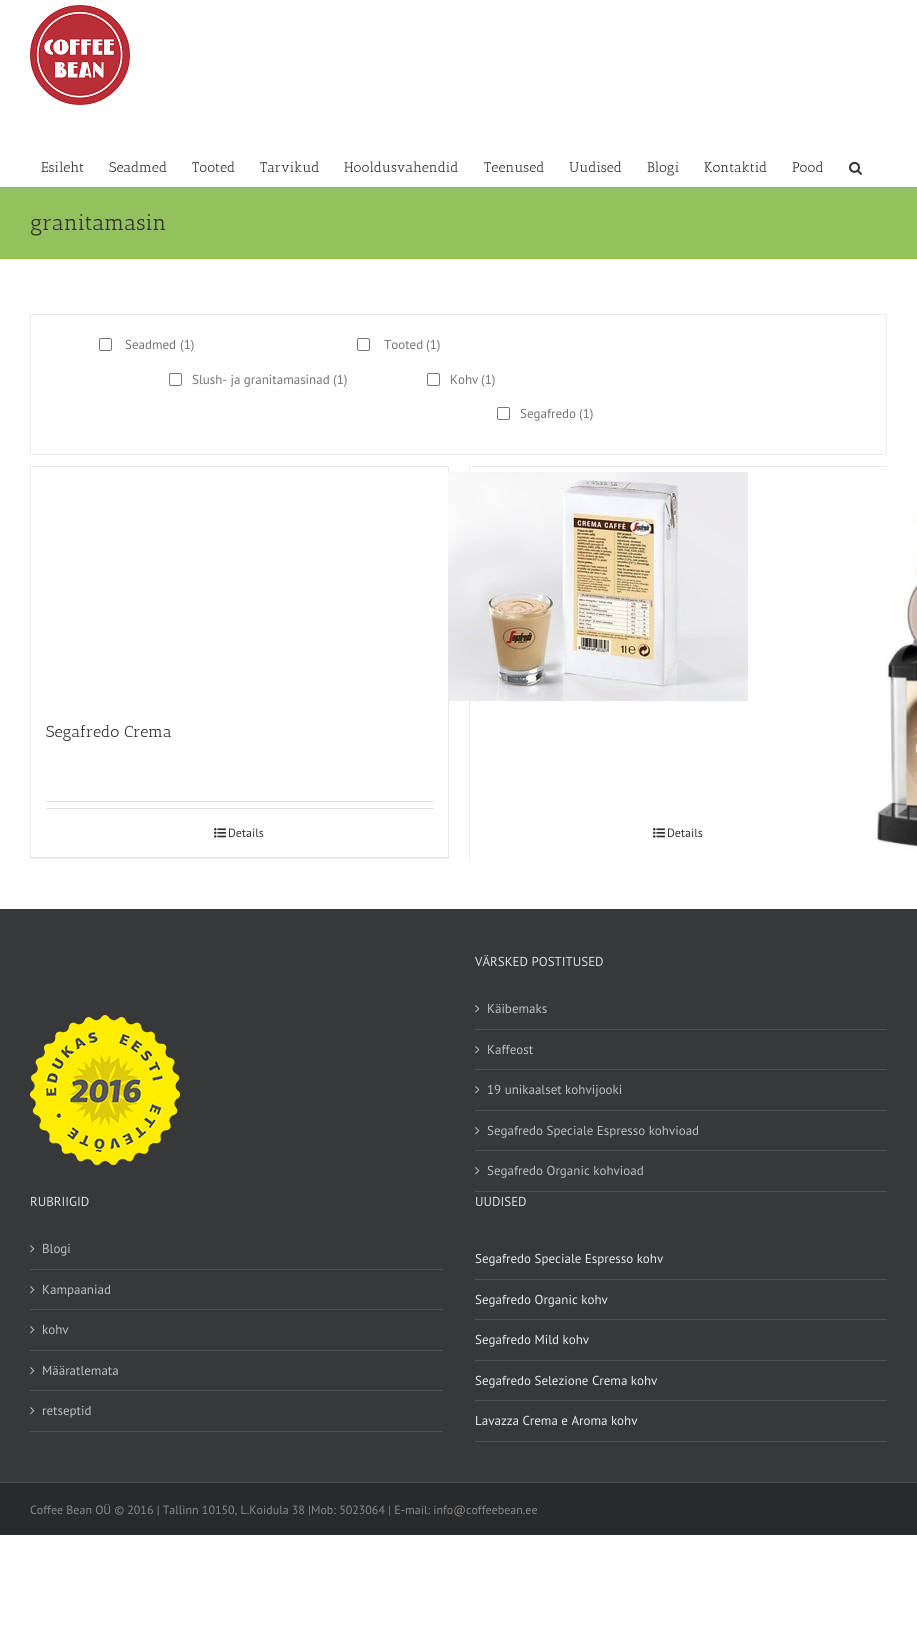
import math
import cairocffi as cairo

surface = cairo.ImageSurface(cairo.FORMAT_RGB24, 917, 1642)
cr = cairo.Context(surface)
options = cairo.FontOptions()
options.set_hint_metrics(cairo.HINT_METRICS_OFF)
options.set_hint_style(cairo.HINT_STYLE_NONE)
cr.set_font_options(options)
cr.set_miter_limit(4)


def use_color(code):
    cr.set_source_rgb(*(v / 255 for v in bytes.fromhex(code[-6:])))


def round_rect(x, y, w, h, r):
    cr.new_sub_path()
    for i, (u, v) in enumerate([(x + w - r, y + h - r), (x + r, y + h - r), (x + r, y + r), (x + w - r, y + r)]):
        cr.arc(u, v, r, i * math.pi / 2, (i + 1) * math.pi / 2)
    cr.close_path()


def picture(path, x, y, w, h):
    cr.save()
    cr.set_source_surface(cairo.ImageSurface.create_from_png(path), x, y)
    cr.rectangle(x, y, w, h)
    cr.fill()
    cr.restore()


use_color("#ffffff")
cr.paint()
picture("img1.png", 30, 5, 100, 100)
cr.select_font_face("Antic Slab")
cr.set_font_size(14)
use_color("#333333")
cr.move_to(41, 172)
cr.show_text("Esileht")
cr.move_to(109, 172)
cr.show_text("Seadmed")
cr.move_to(192, 172)
cr.show_text("Tooted")
cr.move_to(260, 172)
cr.show_text("Tarvikud")
cr.move_to(344, 172)
cr.show_text("Hooldusvahendid")
cr.move_to(484, 172)
cr.show_text("Teenused")
cr.move_to(569, 172)
cr.show_text("Uudised")
cr.move_to(647, 172)
cr.show_text("Blogi")
cr.move_to(704, 172)
cr.show_text("Kontaktid")
cr.move_to(792, 172)
cr.show_text("Pood")
picture("img2.png", 849, 161, 13, 14)
use_color("#93c15e")
cr.rectangle(0, 188, 917, 70)
cr.fill()
use_color("#8bc34a")
cr.rectangle(0, 187, 917, 1)
cr.fill()
cr.rectangle(0, 258, 917, 1)
cr.fill()
cr.set_font_size(22)
use_color("#333333")
cr.move_to(30, 230)
cr.show_text("granitamasin")
round_rect(30.5, 314.5, 856, 140, 2.5)
use_color("#eaeaea")
cr.set_line_width(1)
cr.stroke()
round_rect(99.5, 338.5, 12, 12, 1.5)
use_color("#767676")
cr.stroke()
cr.select_font_face("PT Sans")
cr.set_font_size(13)
use_color("#747474")
cr.move_to(125, 349)
cr.show_text("Seadmed")
cr.move_to(180, 349)
cr.show_text("(1)")
round_rect(169.5, 373.5, 12, 12, 1.5)
use_color("#767676")
cr.stroke()
use_color("#747474")
cr.move_to(192, 384)
cr.show_text("Slush- ja granitamasinad")
cr.move_to(333, 384)
cr.show_text("(1)")
round_rect(357.5, 338.5, 12, 12, 1.5)
use_color("#767676")
cr.stroke()
use_color("#747474")
cr.move_to(384, 349)
cr.show_text("Tooted")
cr.move_to(426, 349)
cr.show_text("(1)")
round_rect(427.5, 373.5, 12, 12, 1.5)
use_color("#767676")
cr.stroke()
use_color("#747474")
cr.move_to(450, 384)
cr.show_text("Kohv")
cr.move_to(481, 384)
cr.show_text("(1)")
round_rect(497.5, 407.5, 12, 12, 1.5)
use_color("#767676")
cr.stroke()
use_color("#747474")
cr.move_to(520, 418)
cr.show_text("Segafredo")
cr.move_to(579, 418)
cr.show_text("(1)")
use_color("#ebeaea")
cr.rectangle(30, 466, 419, 1)
cr.fill()
cr.rectangle(448, 466, 1, 393)
cr.fill()
cr.rectangle(30, 857, 419, 2)
cr.fill()
cr.rectangle(30, 466, 1, 393)
cr.fill()
cr.rectangle(469, 466, 418, 1)
cr.fill()
cr.rectangle(469, 466, 1, 393)
cr.fill()
picture("img3.png", 448, 472, 300, 229)
cr.select_font_face("Antic Slab")
cr.set_font_size(16)
use_color("#333333")
cr.move_to(46, 737)
cr.show_text("Segafredo Crema")
use_color("#e0dede")
cr.rectangle(46, 801, 387, 1)
cr.fill()
cr.rectangle(46, 808, 387, 1)
cr.fill()
picture("img4.png", 214, 828, 12, 10)
cr.select_font_face("PT Sans")
cr.set_font_size(12)
use_color("#333333")
cr.move_to(228, 837)
cr.show_text("Details")
picture("img4.png", 653, 828, 12, 10)
cr.move_to(667, 837)
cr.show_text("Details")
picture("img5.png", 875, 467, 42, 392)
use_color("#363839")
cr.rectangle(0, 909, 917, 573)
cr.fill()
picture("img6.png", 30, 1015, 150, 150)
cr.set_font_size(13)
use_color("#dddddd")
cr.move_to(475, 966)
cr.show_text("VÄRSKED POSTITUSED")
use_color("#505152")
cr.rectangle(475, 1029, 412, 1)
cr.fill()
picture("img7.png", 475, 1005, 5, 8)
use_color("#bfbfbf")
cr.move_to(487, 1013)
cr.show_text("Käibemaks")
use_color("#505152")
cr.rectangle(475, 1069, 412, 1)
cr.fill()
picture("img7.png", 475, 1046, 5, 8)
use_color("#bfbfbf")
cr.move_to(487, 1054)
cr.show_text("Kaffeost")
use_color("#505152")
cr.rectangle(475, 1110, 412, 1)
cr.fill()
picture("img7.png", 475, 1086, 5, 8)
use_color("#bfbfbf")
cr.move_to(487, 1094)
cr.show_text("19 unikaalset kohvijooki")
use_color("#505152")
cr.rectangle(475, 1150, 412, 1)
cr.fill()
picture("img7.png", 475, 1127, 5, 8)
use_color("#bfbfbf")
cr.move_to(487, 1135)
cr.show_text("Segafredo Speciale Espresso kohvioad")
use_color("#505152")
cr.rectangle(475, 1191, 412, 1)
cr.fill()
picture("img7.png", 475, 1167, 5, 8)
use_color("#bfbfbf")
cr.move_to(487, 1175)
cr.show_text("Segafredo Organic kohvioad")
use_color("#dddddd")
cr.move_to(30, 1206)
cr.show_text("RUBRIIGID")
use_color("#505152")
cr.rectangle(30, 1269, 413, 1)
cr.fill()
picture("img7.png", 30, 1245, 5, 8)
use_color("#bfbfbf")
cr.move_to(42, 1253)
cr.show_text("Blogi")
use_color("#505152")
cr.rectangle(30, 1309, 413, 1)
cr.fill()
picture("img7.png", 30, 1286, 5, 8)
use_color("#bfbfbf")
cr.move_to(42, 1294)
cr.show_text("Kampaaniad")
use_color("#505152")
cr.rectangle(30, 1350, 413, 1)
cr.fill()
picture("img7.png", 30, 1326, 5, 8)
use_color("#bfbfbf")
cr.move_to(42, 1334)
cr.show_text("kohv")
use_color("#505152")
cr.rectangle(30, 1390, 413, 1)
cr.fill()
picture("img7.png", 30, 1367, 5, 8)
use_color("#bfbfbf")
cr.move_to(42, 1375)
cr.show_text("Määratlemata")
use_color("#505152")
cr.rectangle(30, 1431, 413, 1)
cr.fill()
picture("img7.png", 30, 1407, 5, 8)
use_color("#bfbfbf")
cr.move_to(42, 1415)
cr.show_text("retseptid")
use_color("#dddddd")
cr.move_to(475, 1206)
cr.show_text("UUDISED")
use_color("#505152")
cr.rectangle(475, 1279, 412, 1)
cr.fill()
use_color("#eaeaea")
cr.move_to(475, 1263)
cr.show_text("Segafredo Speciale Espresso kohv")
use_color("#505152")
cr.rectangle(475, 1319, 412, 1)
cr.fill()
use_color("#eaeaea")
cr.move_to(475, 1304)
cr.show_text("Segafredo Organic kohv")
use_color("#505152")
cr.rectangle(475, 1360, 412, 1)
cr.fill()
use_color("#eaeaea")
cr.move_to(475, 1344)
cr.show_text("Segafredo Mild kohv")
use_color("#505152")
cr.rectangle(475, 1400, 412, 1)
cr.fill()
use_color("#eaeaea")
cr.move_to(475, 1385)
cr.show_text("Segafredo Selezione Crema kohv")
use_color("#505152")
cr.rectangle(475, 1441, 412, 1)
cr.fill()
use_color("#eaeaea")
cr.move_to(475, 1425)
cr.show_text("Lavazza Crema e Aroma kohv")
use_color("#282a2b")
cr.rectangle(0, 1483, 917, 52)
cr.fill()
use_color("#4b4c4d")
cr.rectangle(0, 1482, 917, 1)
cr.fill()
cr.set_font_size(12)
use_color("#8c8989")
cr.move_to(30, 1514)
cr.show_text("Coffee Bean OÜ © 2016 | Tallinn 10150, L.Koidula 38 |Mob: 5023064 | E-mail: info@coffeebean.ee")
surface.write_to_png("result.png")
